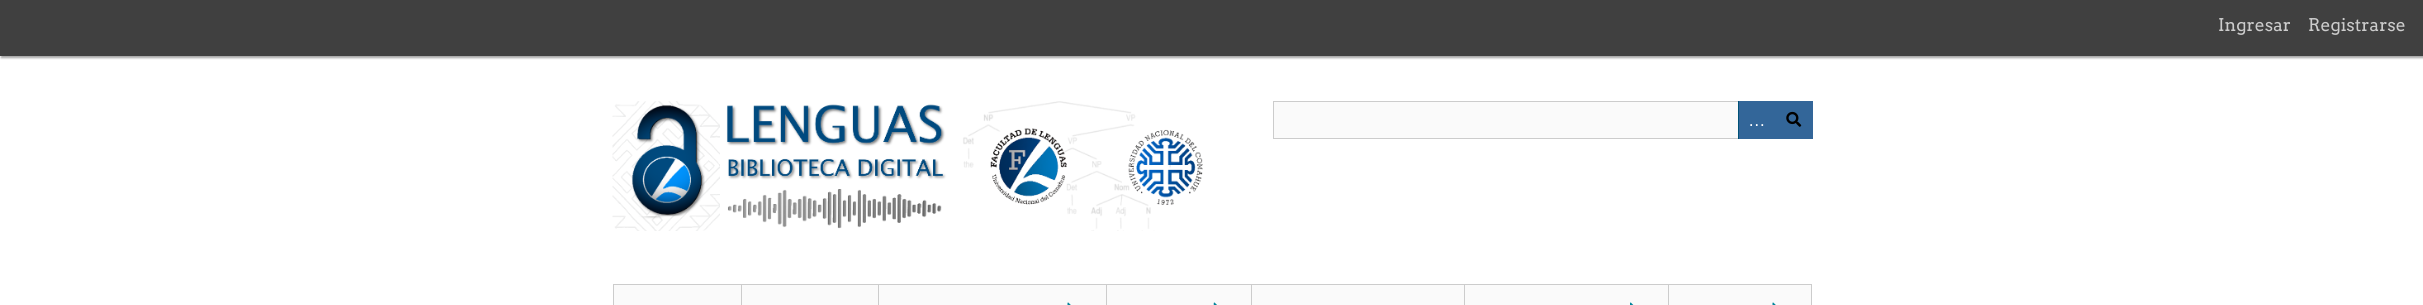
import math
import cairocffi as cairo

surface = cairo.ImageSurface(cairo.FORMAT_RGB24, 2423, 305)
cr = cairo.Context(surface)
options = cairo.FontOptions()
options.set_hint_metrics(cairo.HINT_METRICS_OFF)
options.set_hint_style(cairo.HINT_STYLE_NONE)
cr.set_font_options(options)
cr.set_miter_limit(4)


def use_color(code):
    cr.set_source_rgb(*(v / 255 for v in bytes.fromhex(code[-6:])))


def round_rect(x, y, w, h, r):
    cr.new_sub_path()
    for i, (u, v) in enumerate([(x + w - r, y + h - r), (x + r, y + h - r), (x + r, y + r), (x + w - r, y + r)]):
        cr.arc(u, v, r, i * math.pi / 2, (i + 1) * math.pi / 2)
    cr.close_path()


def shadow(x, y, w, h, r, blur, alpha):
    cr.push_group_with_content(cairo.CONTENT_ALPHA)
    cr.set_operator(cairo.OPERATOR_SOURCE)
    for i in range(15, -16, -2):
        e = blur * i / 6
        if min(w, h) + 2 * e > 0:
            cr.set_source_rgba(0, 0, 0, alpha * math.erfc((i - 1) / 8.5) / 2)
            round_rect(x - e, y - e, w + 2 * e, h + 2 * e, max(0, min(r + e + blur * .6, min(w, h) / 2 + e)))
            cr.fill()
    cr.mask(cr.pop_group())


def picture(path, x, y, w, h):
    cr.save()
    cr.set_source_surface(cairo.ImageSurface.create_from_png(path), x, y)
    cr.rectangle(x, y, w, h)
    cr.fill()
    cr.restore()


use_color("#ffffff")
cr.paint()
use_color("#000000")
shadow(1, 1, 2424, 57, 0, 1, 0.35)
use_color("#404040")
cr.rectangle(0, 0, 2423, 56)
cr.fill()
cr.select_font_face("Arvo")
cr.set_font_size(17.5)
use_color("#cccccc")
cr.move_to(2218, 31)
cr.show_text("Ingresar")
cr.move_to(2308, 31)
cr.show_text("Registrarse")
picture("img1.png", 612, 101, 591, 130)
use_color("#fafafa")
cr.rectangle(1274, 102, 464, 36)
cr.fill()
cr.rectangle(1273.5, 101.5, 539, 37)
use_color("#cccccc")
cr.set_line_width(1)
cr.stroke()
use_color("#336699")
cr.rectangle(1739, 101, 74, 38)
cr.fill()
use_color("#005177")
cr.rectangle(1738, 101, 1, 38)
cr.fill()
cr.select_font_face("Liberation Sans")
use_color("#ffffff")
cr.move_to(1748, 126)
cr.show_text("…")
picture("img2.png", 1786, 111, 16, 16)
use_color("#cccccc")
cr.rectangle(1811, 284, 1, 21)
cr.fill()
use_color("#fafafa")
cr.rectangle(614, 285, 127, 20)
cr.fill()
use_color("#cccccc")
cr.rectangle(613, 284, 128, 1)
cr.fill()
cr.rectangle(613, 284, 1, 21)
cr.fill()
use_color("#fafafa")
cr.rectangle(879, 285, 227, 20)
cr.fill()
use_color("#cccccc")
cr.rectangle(741, 284, 1070, 1)
cr.fill()
cr.rectangle(878, 284, 1, 21)
cr.fill()
picture("img3.png", 1067, 302, 4, 3)
use_color("#fafafa")
cr.rectangle(742, 285, 136, 20)
cr.fill()
use_color("#cccccc")
cr.rectangle(741, 284, 1, 21)
cr.fill()
use_color("#fafafa")
cr.rectangle(1107, 285, 144, 20)
cr.fill()
use_color("#cccccc")
cr.rectangle(1106, 284, 1, 21)
cr.fill()
picture("img4.png", 1213, 302, 4, 3)
use_color("#fafafa")
cr.rectangle(1252, 285, 212, 20)
cr.fill()
use_color("#cccccc")
cr.rectangle(1251, 284, 1, 21)
cr.fill()
use_color("#fafafa")
cr.rectangle(1465, 285, 203, 20)
cr.fill()
use_color("#cccccc")
cr.rectangle(1464, 284, 1, 21)
cr.fill()
picture("img5.png", 1630, 302, 4, 3)
use_color("#fafafa")
cr.rectangle(1669, 285, 142, 20)
cr.fill()
use_color("#cccccc")
cr.rectangle(1668, 284, 1, 21)
cr.fill()
picture("img3.png", 1772, 302, 4, 3)
surface.write_to_png("result.png")
